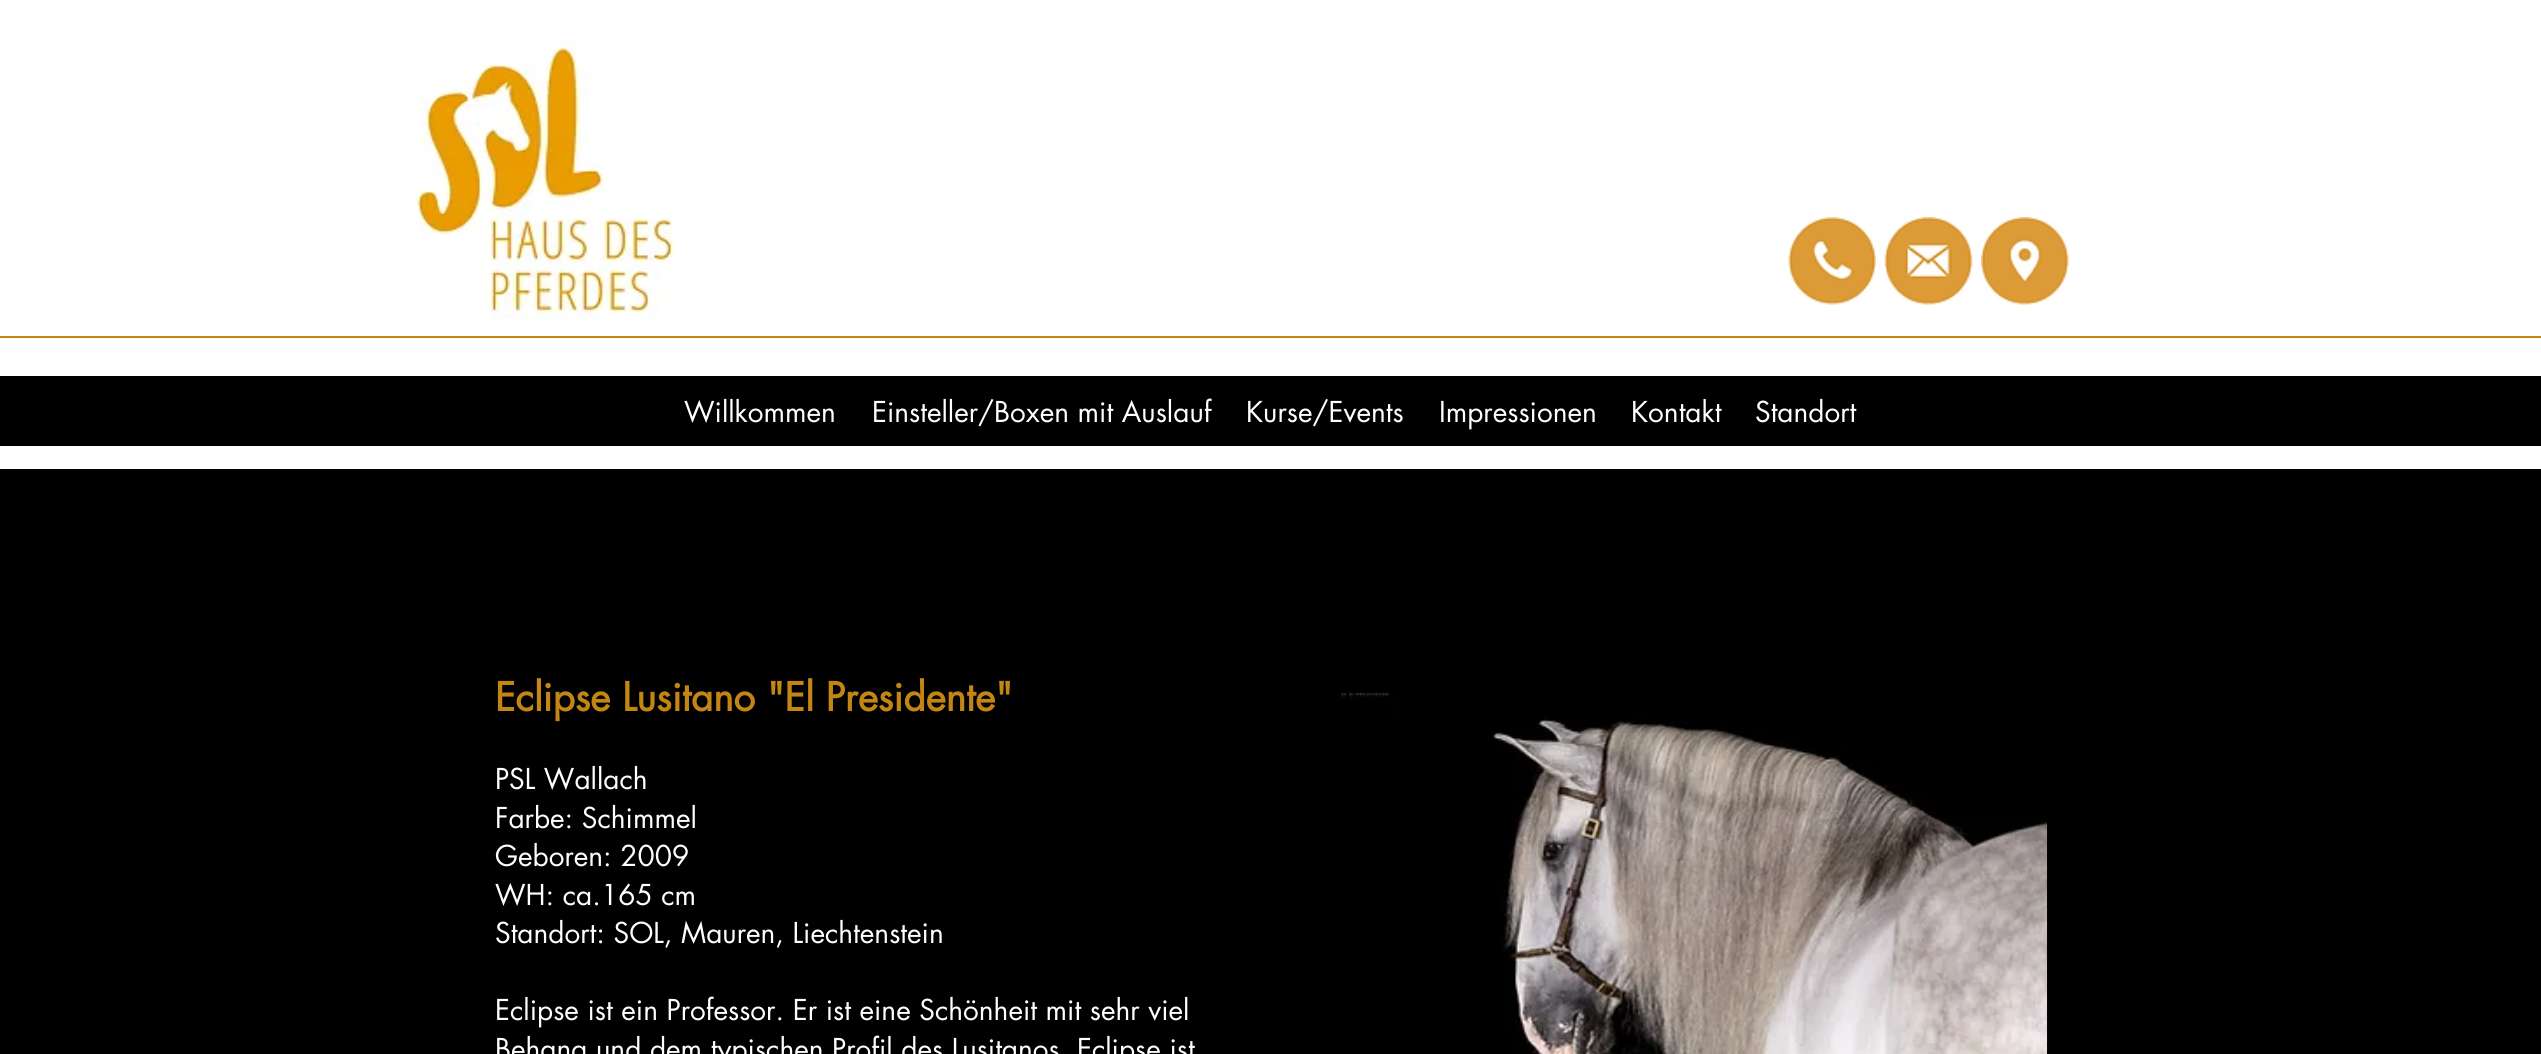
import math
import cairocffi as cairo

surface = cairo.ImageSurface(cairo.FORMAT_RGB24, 2541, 1054)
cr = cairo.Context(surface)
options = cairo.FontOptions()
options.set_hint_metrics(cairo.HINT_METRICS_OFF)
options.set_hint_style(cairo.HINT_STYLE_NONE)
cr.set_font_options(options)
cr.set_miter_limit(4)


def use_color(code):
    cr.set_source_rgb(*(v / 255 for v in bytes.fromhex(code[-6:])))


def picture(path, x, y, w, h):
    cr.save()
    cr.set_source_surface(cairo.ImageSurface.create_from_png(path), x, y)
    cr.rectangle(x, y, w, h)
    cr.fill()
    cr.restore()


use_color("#000000")
cr.paint()
use_color("#ffffff")
cr.rectangle(0, 0, 2541, 469)
cr.fill()
picture("img1.png", 413, 38, 261, 281)
picture("img2.png", 1788, 217, 88, 88)
picture("img3.png", 1884, 217, 89, 88)
picture("img4.png", 1981, 217, 88, 88)
use_color("#000000")
cr.rectangle(0, 376, 2541, 70)
cr.fill()
use_color("#c38513")
cr.rectangle(0, 336, 2541, 2)
cr.fill()
cr.select_font_face("futura")
cr.set_font_size(28)
use_color("#ffffff")
cr.move_to(684, 422)
cr.show_text("Willkommen")
cr.move_to(872, 422)
cr.show_text("Einsteller/Boxen mit Auslauf")
cr.move_to(1246, 422)
cr.show_text("Kurse/Events")
cr.move_to(1439, 422)
cr.show_text("Impressionen")
cr.move_to(1631, 422)
cr.show_text("Kontakt")
cr.move_to(1755, 422)
cr.show_text("Standort")
cr.select_font_face("futura", cairo.FONT_SLANT_NORMAL, cairo.FONT_WEIGHT_BOLD)
cr.set_font_size(38.5)
use_color("#c38513")
cr.move_to(495, 711)
cr.show_text("Eclipse Lusitano \"El Presidente\"")
cr.select_font_face("futura")
cr.set_font_size(28)
use_color("#ffffff")
cr.move_to(495, 789)
cr.show_text("PSL Wallach")
cr.move_to(495, 828)
cr.show_text("Farbe: Schimmel")
cr.move_to(495, 866)
cr.show_text("Geboren: 2009")
cr.move_to(495, 905)
cr.show_text("WH: ca.165 cm")
cr.move_to(495, 943)
cr.show_text("Standort: SOL, Mauren, Liechtenstein")
cr.move_to(495, 1020)
cr.show_text("Eclipse ist ein Professor. Er ist eine Schönheit mit sehr viel")
cr.move_to(495, 1059)
cr.show_text("Behang und dem typischen Profil des Lusitanos. Eclipse ist")
picture("img5.png", 1341, 693, 707, 361)
surface.write_to_png("result.png")
